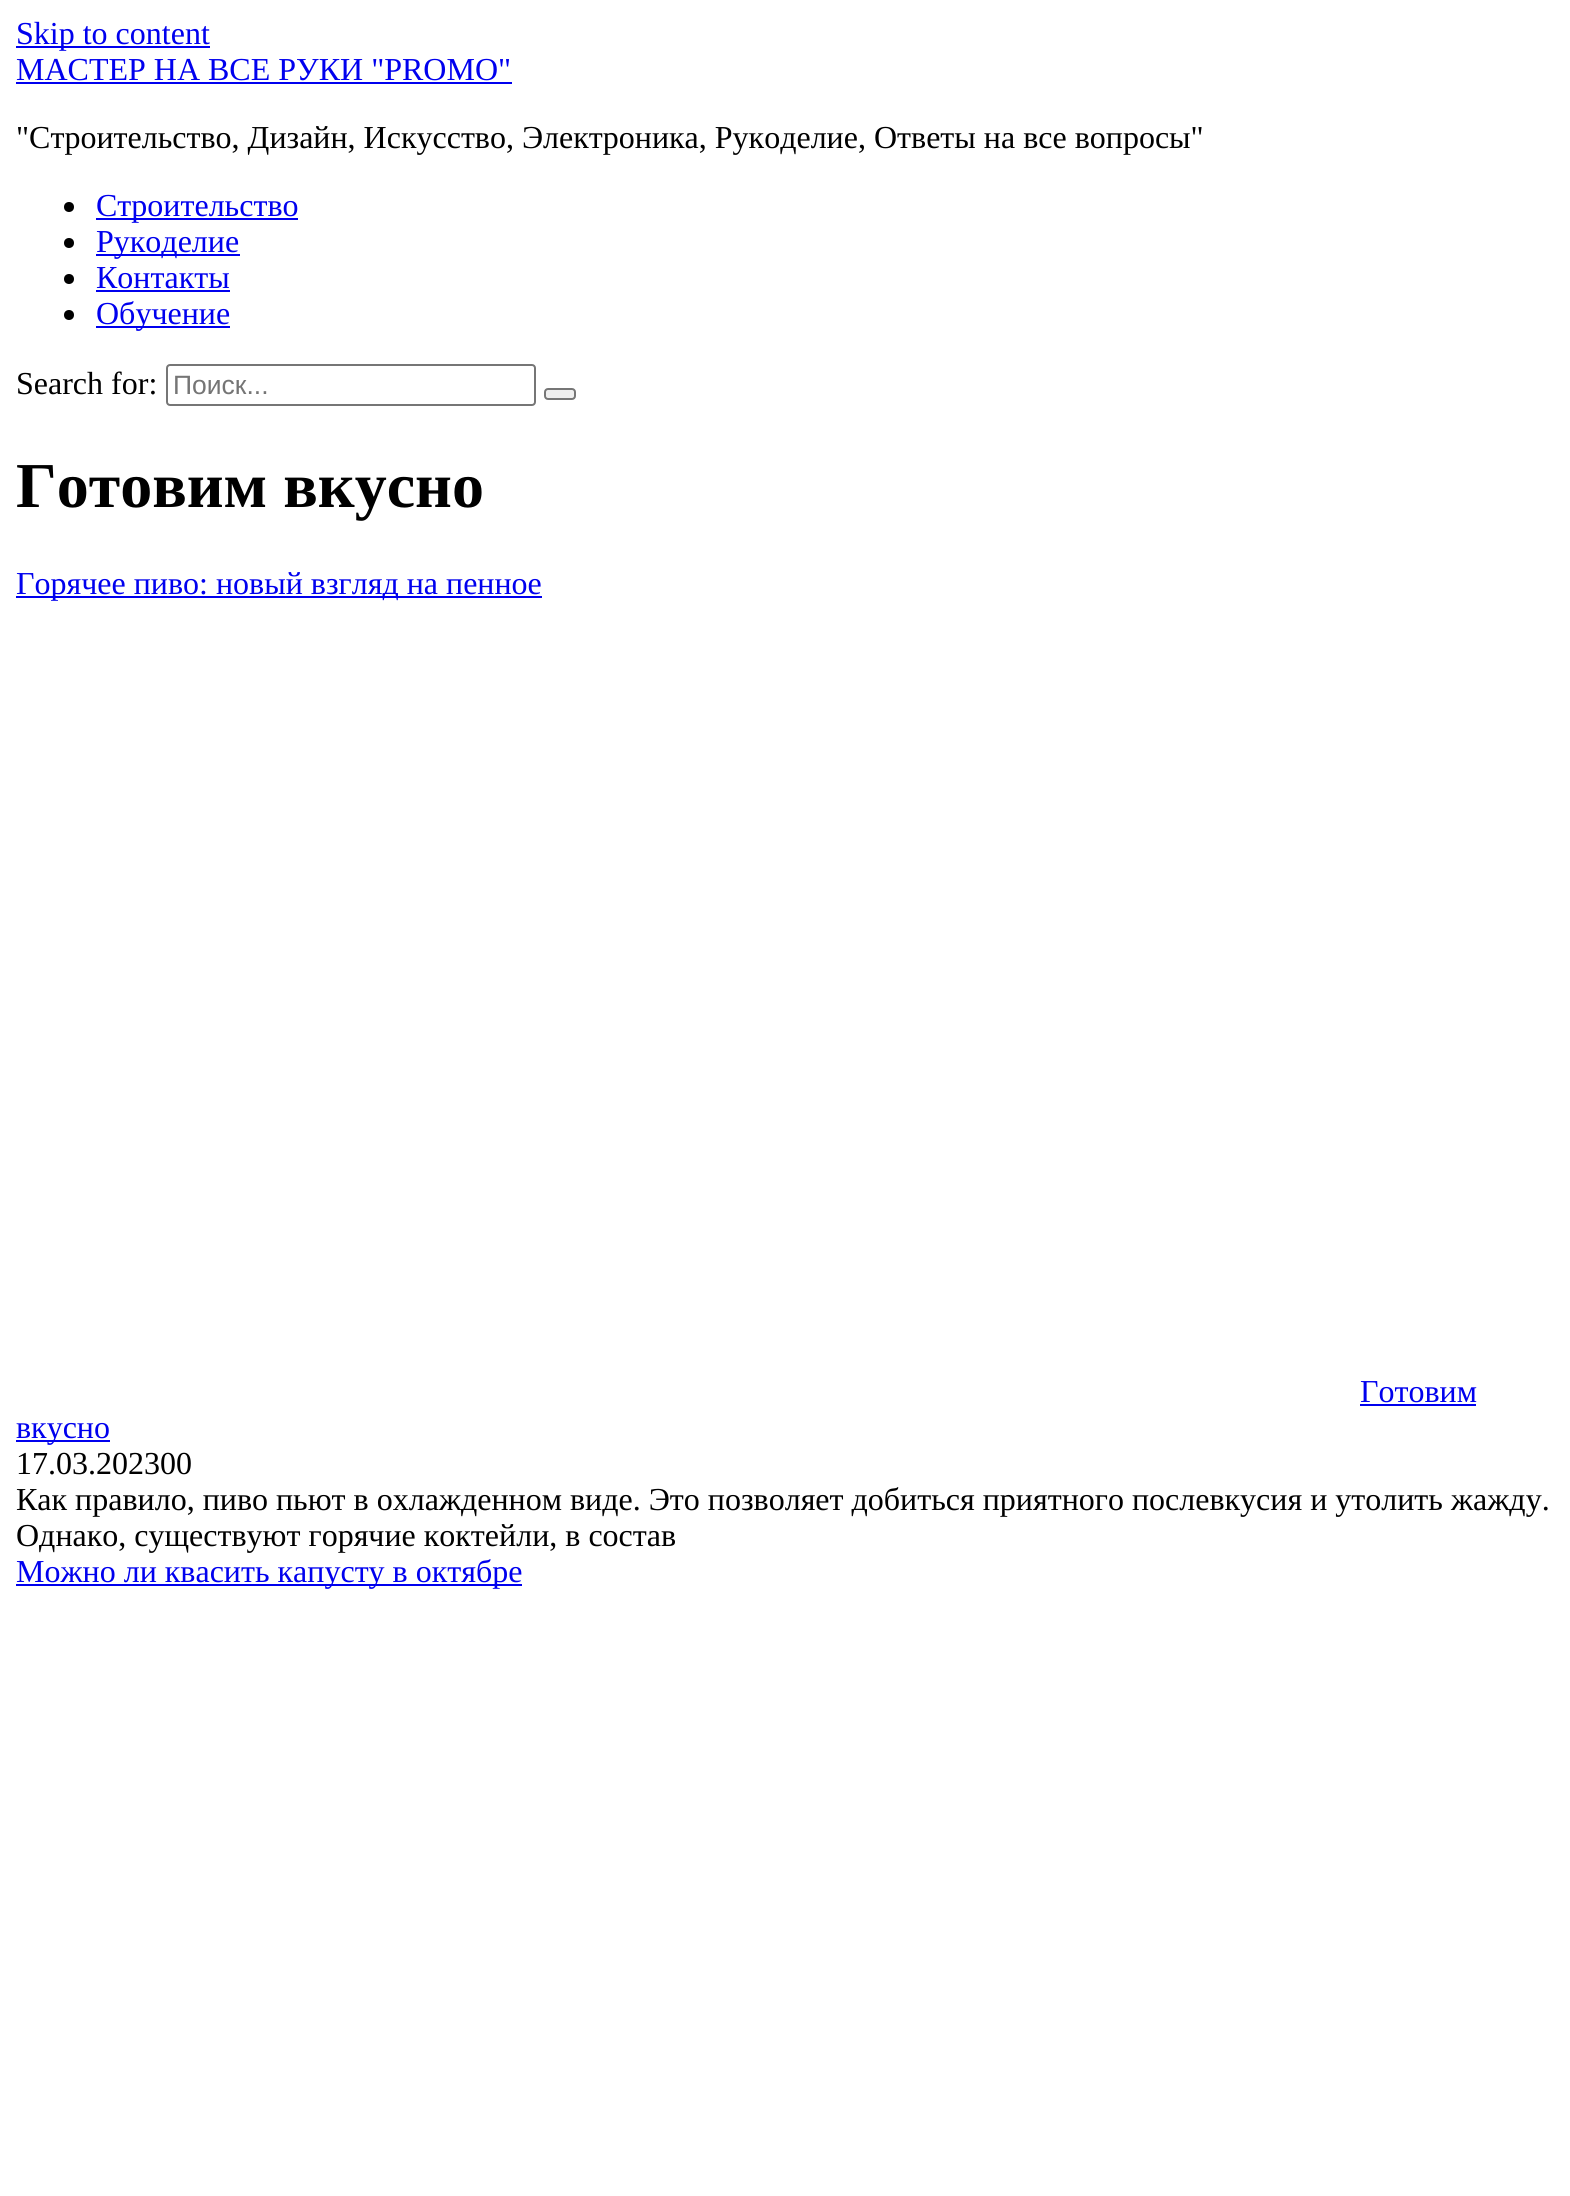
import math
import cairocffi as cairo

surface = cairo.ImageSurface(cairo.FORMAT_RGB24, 1570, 2196)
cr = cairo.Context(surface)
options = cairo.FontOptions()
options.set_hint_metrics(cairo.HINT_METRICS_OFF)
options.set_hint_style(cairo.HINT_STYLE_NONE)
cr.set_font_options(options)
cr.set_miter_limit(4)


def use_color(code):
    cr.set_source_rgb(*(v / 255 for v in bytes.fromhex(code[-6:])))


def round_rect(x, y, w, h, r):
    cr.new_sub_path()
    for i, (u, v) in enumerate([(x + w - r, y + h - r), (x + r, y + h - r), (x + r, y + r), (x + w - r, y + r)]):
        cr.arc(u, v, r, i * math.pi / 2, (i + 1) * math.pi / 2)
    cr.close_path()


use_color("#ffffff")
cr.paint()
use_color("#0000ee")
cr.rectangle(16, 46, 194, 2)
cr.fill()
cr.select_font_face("Liberation Serif")
cr.set_font_size(32)
cr.move_to(16, 44)
cr.show_text("Skip to content")
cr.move_to(16, 80)
cr.show_text("МАСТЕР НА ВСЕ РУКИ \"PROMO\"")
cr.rectangle(16, 82, 496, 2)
cr.fill()
use_color("#000000")
cr.move_to(16, 148)
cr.show_text("\"Строительство, Дизайн, Искусство, Электроника, Рукоделие, Ответы на все вопросы\"")
cr.new_path()
cr.arc(69, 207, 5, 0, 2 * math.pi)
cr.fill()
use_color("#0000ee")
cr.rectangle(96, 218, 202, 2)
cr.fill()
cr.move_to(96, 216)
cr.show_text("Строительство")
use_color("#000000")
cr.new_path()
cr.arc(69, 243, 5, 0, 2 * math.pi)
cr.fill()
use_color("#0000ee")
cr.rectangle(96, 254, 144, 2)
cr.fill()
cr.move_to(96, 252)
cr.show_text("Рукоделие")
use_color("#000000")
cr.new_path()
cr.arc(69, 279, 5, 0, 2 * math.pi)
cr.fill()
use_color("#0000ee")
cr.move_to(96, 288)
cr.show_text("Контакты")
cr.rectangle(96, 290, 134, 2)
cr.fill()
use_color("#000000")
cr.arc(69, 315, 5, 0, 2 * math.pi)
cr.fill()
use_color("#0000ee")
cr.rectangle(96, 326, 134, 2)
cr.fill()
cr.move_to(96, 324)
cr.show_text("Обучение")
use_color("#000000")
cr.move_to(16, 394)
cr.show_text("Search for:")
round_rect(167, 365, 368, 40, 3)
use_color("#767676")
cr.stroke()
cr.select_font_face("Liberation Sans")
cr.set_font_size(26.5)
use_color("#757575")
cr.move_to(173, 394)
cr.show_text("Поиск...")
use_color("#efefef")
round_rect(545, 389, 30, 10, 3)
cr.fill_preserve()
use_color("#767676")
cr.stroke()
cr.select_font_face("Liberation Serif", cairo.FONT_SLANT_NORMAL, cairo.FONT_WEIGHT_BOLD)
cr.set_font_size(64)
use_color("#000000")
cr.move_to(16, 507)
cr.show_text("Готовим вкусно")
use_color("#0000ee")
cr.rectangle(16, 596, 526, 2)
cr.fill()
cr.select_font_face("Liberation Serif")
cr.set_font_size(32)
cr.move_to(16, 594)
cr.show_text("Горячее пиво: новый взгляд на пенное")
cr.move_to(1360, 1402)
cr.show_text("Готовим")
cr.rectangle(1360, 1404, 116, 2)
cr.fill()
cr.rectangle(16, 1440, 94, 2)
cr.fill()
cr.move_to(16, 1438)
cr.show_text("вкусно")
use_color("#000000")
cr.move_to(16, 1474)
cr.show_text("17.03.202300")
cr.move_to(16, 1510)
cr.show_text("Как правило, пиво пьют в охлажденном виде. Это позволяет добиться приятного послевкусия и утолить жажду.")
cr.move_to(16, 1546)
cr.show_text("Однако, существуют горячие коктейли, в состав")
use_color("#0000ee")
cr.rectangle(16, 1584, 506, 2)
cr.fill()
cr.move_to(16, 1582)
cr.show_text("Можно ли квасить капусту в октябре")
surface.write_to_png("result.png")
